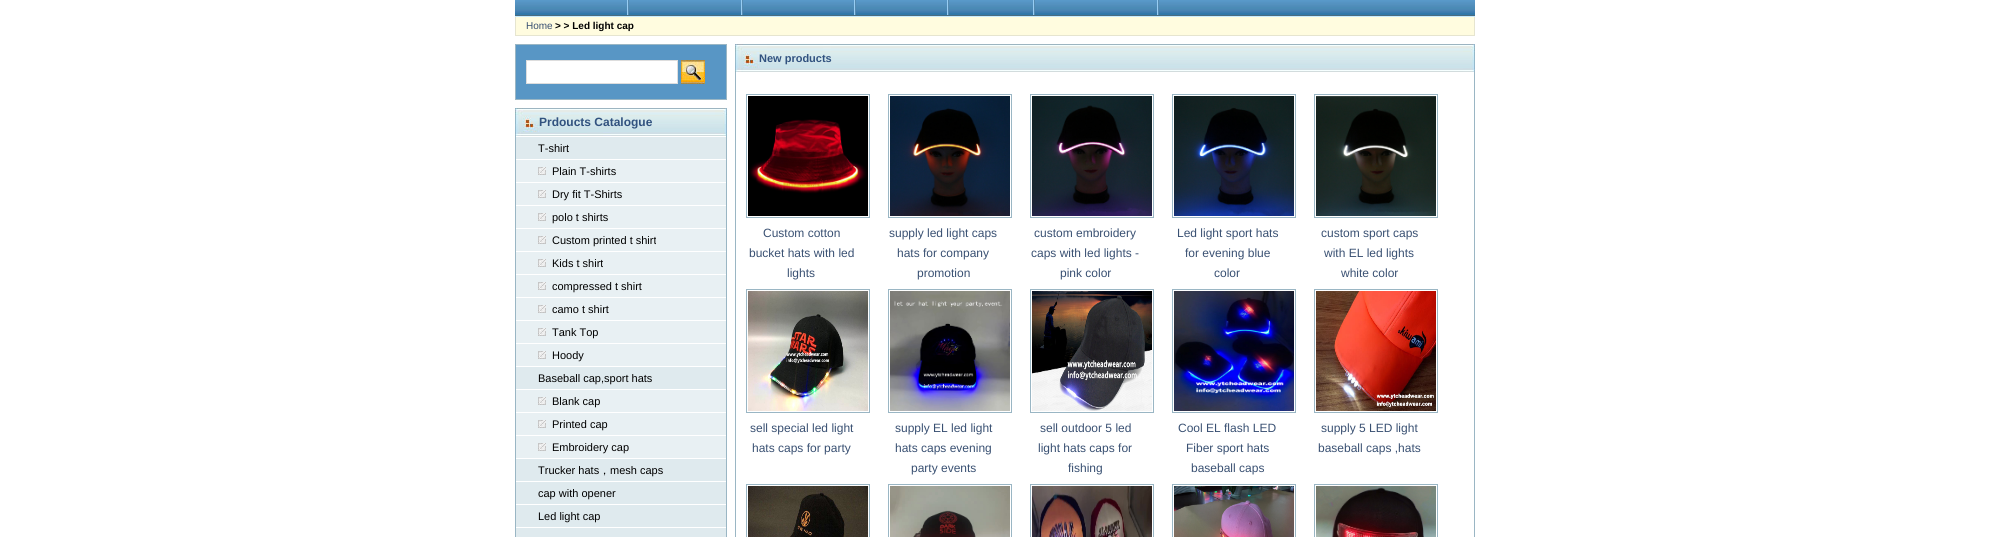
import math
import cairocffi as cairo

surface = cairo.ImageSurface(cairo.FORMAT_RGB24, 1989, 537)
cr = cairo.Context(surface)
options = cairo.FontOptions()
options.set_hint_metrics(cairo.HINT_METRICS_OFF)
options.set_hint_style(cairo.HINT_STYLE_NONE)
cr.set_font_options(options)
cr.set_miter_limit(4)


def use_color(code):
    cr.set_source_rgb(*(v / 255 for v in bytes.fromhex(code[-6:])))


def picture(path, x, y, w, h):
    cr.save()
    cr.set_source_surface(cairo.ImageSurface.create_from_png(path), x, y)
    cr.rectangle(x, y, w, h)
    cr.fill()
    cr.restore()


use_color("#ffffff")
cr.paint()
picture("img1.png", 515, 0, 960, 17)
picture("img2.png", 627, 0, 2, 15)
picture("img2.png", 741, 0, 2, 15)
picture("img2.png", 854, 0, 2, 15)
picture("img2.png", 947, 0, 2, 15)
picture("img2.png", 1033, 0, 2, 15)
picture("img2.png", 1157, 0, 2, 15)
use_color("#fffcdf")
cr.rectangle(516, 17, 958, 18)
cr.fill()
use_color("#e6e5d0")
cr.rectangle(1474, 17, 1, 19)
cr.fill()
cr.rectangle(515, 35, 960, 1)
cr.fill()
cr.rectangle(515, 17, 1, 19)
cr.fill()
cr.select_font_face("Liberation Sans")
cr.set_font_size(10)
use_color("#395072")
cr.move_to(526, 29)
cr.show_text("Home")
cr.select_font_face("Liberation Sans", cairo.FONT_SLANT_NORMAL, cairo.FONT_WEIGHT_BOLD)
use_color("#000000")
cr.move_to(555, 29)
cr.show_text("> > Led light cap")
use_color("#5896c5")
cr.rectangle(515.5, 44.5, 211, 55)
cr.fill_preserve()
use_color("#9ab6c4")
cr.set_line_width(1)
cr.stroke()
use_color("#ffffff")
cr.rectangle(526.5, 60.5, 151, 23)
cr.fill_preserve()
use_color("#dddddd")
cr.stroke()
picture("img3.png", 681, 60, 24, 24)
picture("img4.png", 515, 108, 212, 28)
cr.set_font_size(12)
use_color("#31527f")
cr.move_to(539, 126)
cr.show_text("Prdoucts Catalogue")
use_color("#9ab6c4")
cr.rectangle(726, 136, 1, 401)
cr.fill()
cr.rectangle(515, 136, 1, 401)
cr.fill()
use_color("#dfeaee")
cr.rectangle(516, 137, 210, 22)
cr.fill()
cr.select_font_face("Liberation Sans")
cr.set_font_size(11)
use_color("#000000")
cr.move_to(538, 152)
cr.show_text("T-shirt")
use_color("#e8f0f3")
cr.rectangle(516, 160, 210, 206)
cr.fill()
picture("img5.png", 538, 167, 8, 8)
use_color("#000000")
cr.move_to(552, 175)
cr.show_text("Plain T-shirts")
picture("img5.png", 538, 190, 8, 8)
use_color("#ffffff")
cr.rectangle(516, 182, 210, 1)
cr.fill()
use_color("#000000")
cr.move_to(552, 198)
cr.show_text("Dry fit T-Shirts")
picture("img5.png", 538, 213, 8, 8)
use_color("#ffffff")
cr.rectangle(516, 205, 210, 1)
cr.fill()
use_color("#000000")
cr.move_to(552, 221)
cr.show_text("polo t shirts")
picture("img5.png", 538, 236, 8, 8)
use_color("#ffffff")
cr.rectangle(516, 228, 210, 1)
cr.fill()
use_color("#000000")
cr.move_to(552, 244)
cr.show_text("Custom printed t shirt")
picture("img5.png", 538, 259, 8, 8)
use_color("#ffffff")
cr.rectangle(516, 251, 210, 1)
cr.fill()
use_color("#000000")
cr.move_to(552, 267)
cr.show_text("Kids t shirt")
picture("img5.png", 538, 282, 8, 8)
use_color("#ffffff")
cr.rectangle(516, 274, 210, 1)
cr.fill()
use_color("#000000")
cr.move_to(552, 290)
cr.show_text("compressed t shirt")
picture("img5.png", 538, 305, 8, 8)
use_color("#ffffff")
cr.rectangle(516, 297, 210, 1)
cr.fill()
use_color("#000000")
cr.move_to(552, 313)
cr.show_text("camo t shirt")
picture("img5.png", 538, 328, 8, 8)
use_color("#ffffff")
cr.rectangle(516, 320, 210, 1)
cr.fill()
use_color("#000000")
cr.move_to(552, 336)
cr.show_text("Tank Top")
picture("img5.png", 538, 351, 8, 8)
use_color("#ffffff")
cr.rectangle(516, 343, 210, 1)
cr.fill()
use_color("#000000")
cr.move_to(552, 359)
cr.show_text("Hoody")
use_color("#dfeaee")
cr.rectangle(516, 367, 210, 22)
cr.fill()
use_color("#000000")
cr.move_to(538, 382)
cr.show_text("Baseball cap,sport hats")
use_color("#e8f0f3")
cr.rectangle(516, 390, 210, 68)
cr.fill()
picture("img5.png", 538, 397, 8, 8)
use_color("#000000")
cr.move_to(552, 405)
cr.show_text("Blank cap")
picture("img5.png", 538, 420, 8, 8)
use_color("#ffffff")
cr.rectangle(516, 412, 210, 1)
cr.fill()
use_color("#000000")
cr.move_to(552, 428)
cr.show_text("Printed cap")
picture("img5.png", 538, 443, 8, 8)
use_color("#ffffff")
cr.rectangle(516, 435, 210, 1)
cr.fill()
use_color("#000000")
cr.move_to(552, 451)
cr.show_text("Embroidery cap")
use_color("#dfeaee")
cr.rectangle(516, 459, 210, 22)
cr.fill()
use_color("#000000")
cr.move_to(538, 474)
cr.show_text("Trucker hats")
cr.select_font_face("WenQuanYi Zen Hei Medium")
cr.move_to(599, 474)
cr.show_text("，")
cr.select_font_face("Liberation Sans")
cr.move_to(610, 474)
cr.show_text("mesh caps")
use_color("#dfeaee")
cr.rectangle(516, 482, 210, 22)
cr.fill()
use_color("#000000")
cr.move_to(538, 497)
cr.show_text("cap with opener")
use_color("#dfeaee")
cr.rectangle(516, 505, 210, 22)
cr.fill()
use_color("#000000")
cr.move_to(538, 520)
cr.show_text("Led light cap")
use_color("#dfeaee")
cr.rectangle(516, 528, 210, 9)
cr.fill()
picture("img6.png", 735, 44, 740, 28)
cr.select_font_face("Liberation Sans", cairo.FONT_SLANT_NORMAL, cairo.FONT_WEIGHT_BOLD)
use_color("#31527f")
cr.move_to(759, 62)
cr.show_text("New products")
use_color("#9ab6c4")
cr.rectangle(1474, 72, 1, 465)
cr.fill()
cr.rectangle(735, 72, 1, 465)
cr.fill()
cr.rectangle(746.5, 94.5, 123, 123)
cr.stroke()
picture("img7.png", 748, 96, 120, 120)
cr.select_font_face("Liberation Sans")
cr.set_font_size(12)
use_color("#395072")
cr.move_to(763, 237)
cr.show_text("Custom cotton")
cr.move_to(749, 257)
cr.show_text("bucket hats with led")
cr.move_to(787, 277)
cr.show_text("lights")
cr.rectangle(888.5, 94.5, 123, 123)
use_color("#9ab6c4")
cr.stroke()
picture("img8.png", 890, 96, 120, 120)
use_color("#395072")
cr.move_to(889, 237)
cr.show_text("supply led light caps")
cr.move_to(897, 257)
cr.show_text("hats for company")
cr.move_to(917, 277)
cr.show_text("promotion")
cr.rectangle(1030.5, 94.5, 123, 123)
use_color("#9ab6c4")
cr.stroke()
picture("img9.png", 1032, 96, 120, 120)
use_color("#395072")
cr.move_to(1034, 237)
cr.show_text("custom embroidery")
cr.move_to(1031, 257)
cr.show_text("caps with led lights -")
cr.move_to(1060, 277)
cr.show_text("pink color")
cr.rectangle(1172.5, 94.5, 123, 123)
use_color("#9ab6c4")
cr.stroke()
picture("img10.png", 1174, 96, 120, 120)
use_color("#395072")
cr.move_to(1177, 237)
cr.show_text("Led light sport hats")
cr.move_to(1185, 257)
cr.show_text("for evening blue")
cr.move_to(1214, 277)
cr.show_text("color")
cr.rectangle(1314.5, 94.5, 123, 123)
use_color("#9ab6c4")
cr.stroke()
picture("img11.png", 1316, 96, 120, 120)
use_color("#395072")
cr.move_to(1321, 237)
cr.show_text("custom sport caps")
cr.move_to(1324, 257)
cr.show_text("with EL led lights")
cr.move_to(1341, 277)
cr.show_text("white color")
cr.rectangle(746.5, 289.5, 123, 123)
use_color("#9ab6c4")
cr.stroke()
picture("img12.png", 748, 291, 120, 120)
use_color("#395072")
cr.move_to(750, 432)
cr.show_text("sell special led light")
cr.move_to(752, 452)
cr.show_text("hats caps for party")
cr.rectangle(888.5, 289.5, 123, 123)
use_color("#9ab6c4")
cr.stroke()
picture("img13.png", 890, 291, 120, 120)
use_color("#395072")
cr.move_to(895, 432)
cr.show_text("supply EL led light")
cr.move_to(895, 452)
cr.show_text("hats caps evening")
cr.move_to(911, 472)
cr.show_text("party events")
cr.rectangle(1030.5, 289.5, 123, 123)
use_color("#9ab6c4")
cr.stroke()
picture("img14.png", 1032, 291, 120, 120)
use_color("#395072")
cr.move_to(1040, 432)
cr.show_text("sell outdoor 5 led")
cr.move_to(1038, 452)
cr.show_text("light hats caps for")
cr.move_to(1068, 472)
cr.show_text("fishing")
cr.rectangle(1172.5, 289.5, 123, 123)
use_color("#9ab6c4")
cr.stroke()
picture("img15.png", 1174, 291, 120, 120)
use_color("#395072")
cr.move_to(1178, 432)
cr.show_text("Cool EL flash LED")
cr.move_to(1186, 452)
cr.show_text("Fiber sport hats")
cr.move_to(1191, 472)
cr.show_text("baseball caps")
cr.rectangle(1314.5, 289.5, 123, 123)
use_color("#9ab6c4")
cr.stroke()
picture("img16.png", 1316, 291, 120, 120)
use_color("#395072")
cr.move_to(1321, 432)
cr.show_text("supply 5 LED light")
cr.move_to(1318, 452)
cr.show_text("baseball caps ,hats")
cr.rectangle(746.5, 484.5, 123, 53)
use_color("#9ab6c4")
cr.stroke()
picture("img17.png", 748, 486, 120, 51)
cr.rectangle(888.5, 484.5, 123, 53)
cr.stroke()
picture("img18.png", 890, 486, 120, 51)
cr.rectangle(1030.5, 484.5, 123, 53)
cr.stroke()
picture("img19.png", 1032, 486, 120, 51)
cr.rectangle(1172.5, 484.5, 123, 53)
cr.stroke()
picture("img20.png", 1174, 486, 120, 51)
cr.rectangle(1314.5, 484.5, 123, 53)
cr.stroke()
picture("img21.png", 1316, 486, 120, 51)
surface.write_to_png("result.png")
